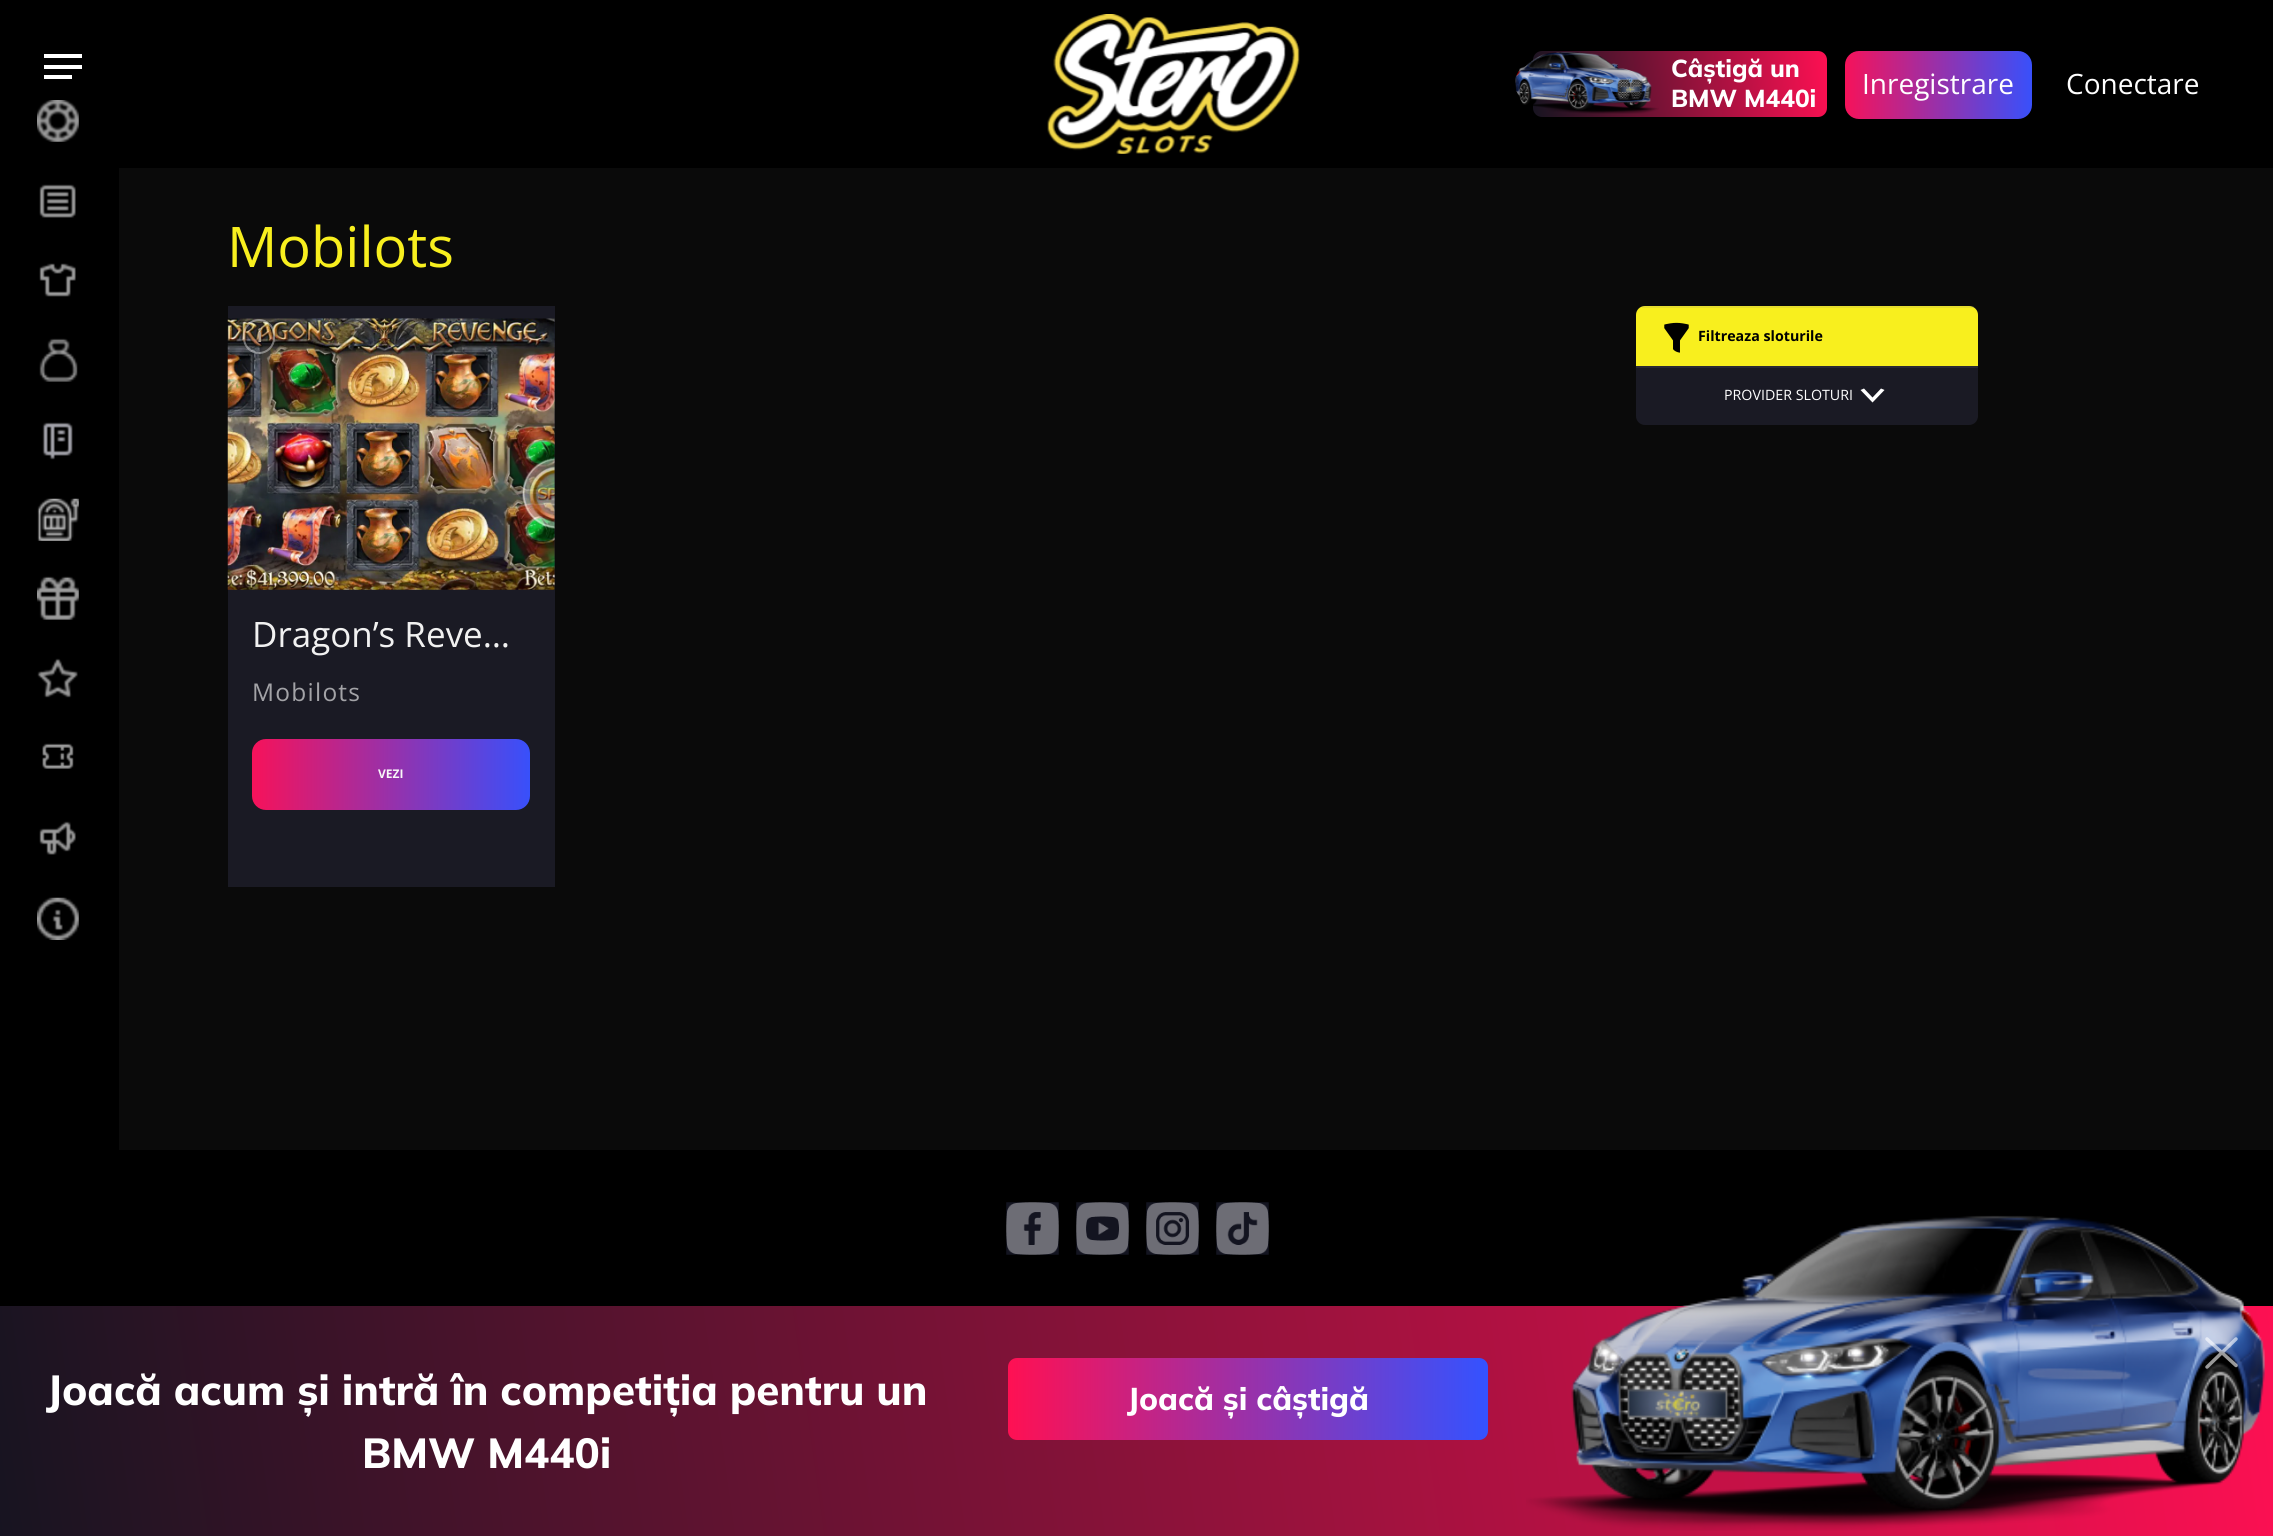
import math
import cairocffi as cairo

surface = cairo.ImageSurface(cairo.FORMAT_RGB24, 2273, 1536)
cr = cairo.Context(surface)
options = cairo.FontOptions()
options.set_hint_metrics(cairo.HINT_METRICS_OFF)
options.set_hint_style(cairo.HINT_STYLE_NONE)
cr.set_font_options(options)
cr.set_miter_limit(4)


def use_color(code):
    cr.set_source_rgb(*(v / 255 for v in bytes.fromhex(code[-6:])))


def spaced_text(x, y, s, letter, word):
    cr.move_to(x, y)
    for ch in s:
        cr.show_text(ch)
        cr.rel_move_to(letter + word * (ch == ' '), 0)


def round_rect(x, y, w, h, r):
    cr.new_sub_path()
    for i, (u, v) in enumerate([(x + w - r, y + h - r), (x + r, y + h - r), (x + r, y + r), (x + w - r, y + r)]):
        cr.arc(u, v, r, i * math.pi / 2, (i + 1) * math.pi / 2)
    cr.close_path()


def picture(path, x, y, w, h):
    cr.save()
    cr.set_source_surface(cairo.ImageSurface.create_from_png(path), x, y)
    cr.rectangle(x, y, w, h)
    cr.fill()
    cr.restore()


use_color("#0a0a0a")
cr.paint()
use_color("#000000")
cr.rectangle(0, 0, 119, 1306)
cr.fill()
use_color("#ffffff")
cr.rectangle(44, 54, 38, 4)
cr.fill()
cr.rectangle(44, 65, 38, 4)
cr.fill()
cr.rectangle(44, 75, 28, 4)
cr.fill()
picture("img1.png", 37, 100, 42, 42)
picture("img2.png", 39, 184, 37, 34)
picture("img3.png", 39, 263, 37, 34)
picture("img4.png", 39, 338, 39, 44)
picture("img5.png", 42, 422, 31, 38)
picture("img6.png", 37, 498, 42, 43)
picture("img7.png", 37, 576, 42, 44)
picture("img8.png", 37, 658, 41, 40)
picture("img9.png", 42, 743, 32, 26)
picture("img10.png", 39, 821, 37, 34)
picture("img11.png", 37, 897, 42, 43)
use_color("#000000")
cr.rectangle(119, 0, 2154, 168)
cr.fill()
picture("img12.png", 1047, 14, 253, 140)
gradient = cairo.LinearGradient(1527, 105, 1831, 63)
gradient.add_color_stop_rgba(0, 0.078, 0.078, 0.125, 1)
gradient.add_color_stop_rgba(1, 1, 0.063, 0.325, 1)
cr.set_source(gradient)
round_rect(1533, 51, 294, 66, 9)
cr.fill()
picture("img13.png", 1515, 52, 144, 62)
cr.select_font_face("Mulish ExtraBold")
cr.set_font_size(24.5)
use_color("#ffffff")
cr.move_to(1671, 77)
cr.show_text("Câștigă un")
cr.move_to(1671, 107)
cr.show_text("BMW M440i")
gradient = cairo.LinearGradient(1845, 85, 2032, 85)
gradient.add_color_stop_rgba(0, 0.965, 0.071, 0.353, 1)
gradient.add_color_stop_rgba(1, 0.22, 0.314, 0.984, 1)
cr.set_source(gradient)
round_rect(1845, 51, 187, 68, 14)
cr.fill()
cr.select_font_face("Open Sans")
cr.set_font_size(28)
use_color("#ffffff")
cr.move_to(1862, 94)
cr.show_text("Inregistrare")
cr.move_to(2066, 94)
cr.show_text("Conectare")
cr.set_font_size(56)
use_color("#f8ef1e")
cr.move_to(227, 267)
cr.show_text("Mobilots")
use_color("#1a1a24")
cr.rectangle(228, 306, 327, 581)
cr.fill()
picture("img14.png", 227, 318, 328, 272)
round_rect(244, 320, 30, 33, 15)
cr.set_source_rgba(0.945, 0.945, 0.945, 0.42)
cr.stroke()
cr.select_font_face("Open Sans", cairo.FONT_SLANT_NORMAL, cairo.FONT_WEIGHT_BOLD)
cr.set_font_size(18)
use_color("#b1a08f")
cr.move_to(257, 342)
cr.show_text("i")
cr.select_font_face("Open Sans")
cr.set_font_size(35)
use_color("#f1f1f1")
cr.move_to(252, 647)
cr.show_text("Dragon’s Reve…")
cr.set_font_size(24.5)
use_color("#a3a3a7")
spaced_text(252, 701, "Mobilots", 1.25, 0)
gradient = cairo.LinearGradient(252, 774, 530, 774)
gradient.add_color_stop_rgba(0, 0.965, 0.071, 0.353, 1)
gradient.add_color_stop_rgba(1, 0.22, 0.314, 0.984, 1)
cr.set_source(gradient)
round_rect(252, 739, 278, 71, 14)
cr.fill()
cr.select_font_face("Open Sans", cairo.FONT_SLANT_NORMAL, cairo.FONT_WEIGHT_BOLD)
cr.set_font_size(12)
use_color("#f8f8f8")
cr.move_to(378, 778)
cr.show_text("VEZI")
use_color("#1a1a24")
round_rect(1636, 306, 342, 119, 9)
cr.fill()
use_color("#f8ef1e")
cr.new_path()
cr.move_to(1645, 306)
cr.line_to(1969, 306)
cr.curve_to(1974, 306, 1978, 310, 1978, 315)
cr.line_to(1978, 366)
cr.line_to(1636, 366)
cr.line_to(1636, 315)
cr.curve_to(1636, 310, 1640, 306, 1645, 306)
cr.close_path()
cr.fill()
cr.set_source_rgba(0.502, 0.502, 0.502, 0.15)
cr.rectangle(1642, 306, 332, 2)
cr.fill()
picture("img15.png", 1664, 322, 25, 31)
cr.set_font_size(14.25)
use_color("#000000")
cr.move_to(1698, 341)
cr.show_text("Filtreaza sloturile")
use_color("#292932")
cr.rectangle(1636, 366, 342, 2)
cr.fill()
cr.select_font_face("Open Sans")
use_color("#ffffff")
cr.move_to(1724, 400)
cr.show_text("PROVIDER SLOTURI")
cr.new_path()
cr.move_to(1864, 388.5)
cr.line_to(1872.5, 397.5)
cr.line_to(1881, 388.5)
cr.line_to(1884.5, 390)
cr.line_to(1872.5, 402.5)
cr.line_to(1860.5, 390)
cr.close_path()
cr.fill()
use_color("#000000")
cr.rectangle(119, 1150, 2154, 156)
cr.fill()
picture("img16.png", 1006, 1202, 53, 53)
picture("img17.png", 1076, 1202, 53, 53)
picture("img18.png", 1146, 1202, 53, 53)
picture("img19.png", 1216, 1202, 53, 53)
gradient = cairo.LinearGradient(-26, 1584, 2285, 1260)
gradient.add_color_stop_rgba(0, 0.078, 0.078, 0.125, 1)
gradient.add_color_stop_rgba(1, 1, 0.063, 0.325, 1)
cr.set_source(gradient)
cr.rectangle(0, 1306, 2273, 230)
cr.fill()
picture("img20.png", 1526, 1215, 739, 316)
cr.new_path()
cr.move_to(2207, 1339)
cr.line_to(2236, 1365.5)
cr.move_to(2207, 1367)
cr.line_to(2236, 1339)
cr.set_source_rgba(1, 1, 1, 0.6)
cr.set_line_width(3.5)
cr.set_line_cap(cairo.LINE_CAP_ROUND)
cr.set_line_join(cairo.LINE_JOIN_ROUND)
cr.stroke()
cr.select_font_face("Mulish ExtraBold")
cr.set_font_size(42)
use_color("#ffffff")
cr.move_to(46, 1405)
cr.show_text("Joacă acum și intră în competiția pentru un")
cr.move_to(362, 1468)
cr.show_text("BMW M440i")
gradient = cairo.LinearGradient(1008, 1399, 1488, 1399)
gradient.add_color_stop_rgba(0, 1, 0.063, 0.325, 1)
gradient.add_color_stop_rgba(1, 0.204, 0.322, 1, 1)
cr.set_source(gradient)
round_rect(1008, 1358, 480, 82, 9)
cr.fill()
cr.set_font_size(31.5)
use_color("#ffffff")
cr.move_to(1127, 1410)
cr.show_text("Joacă și câștigă")
surface.write_to_png("result.png")
